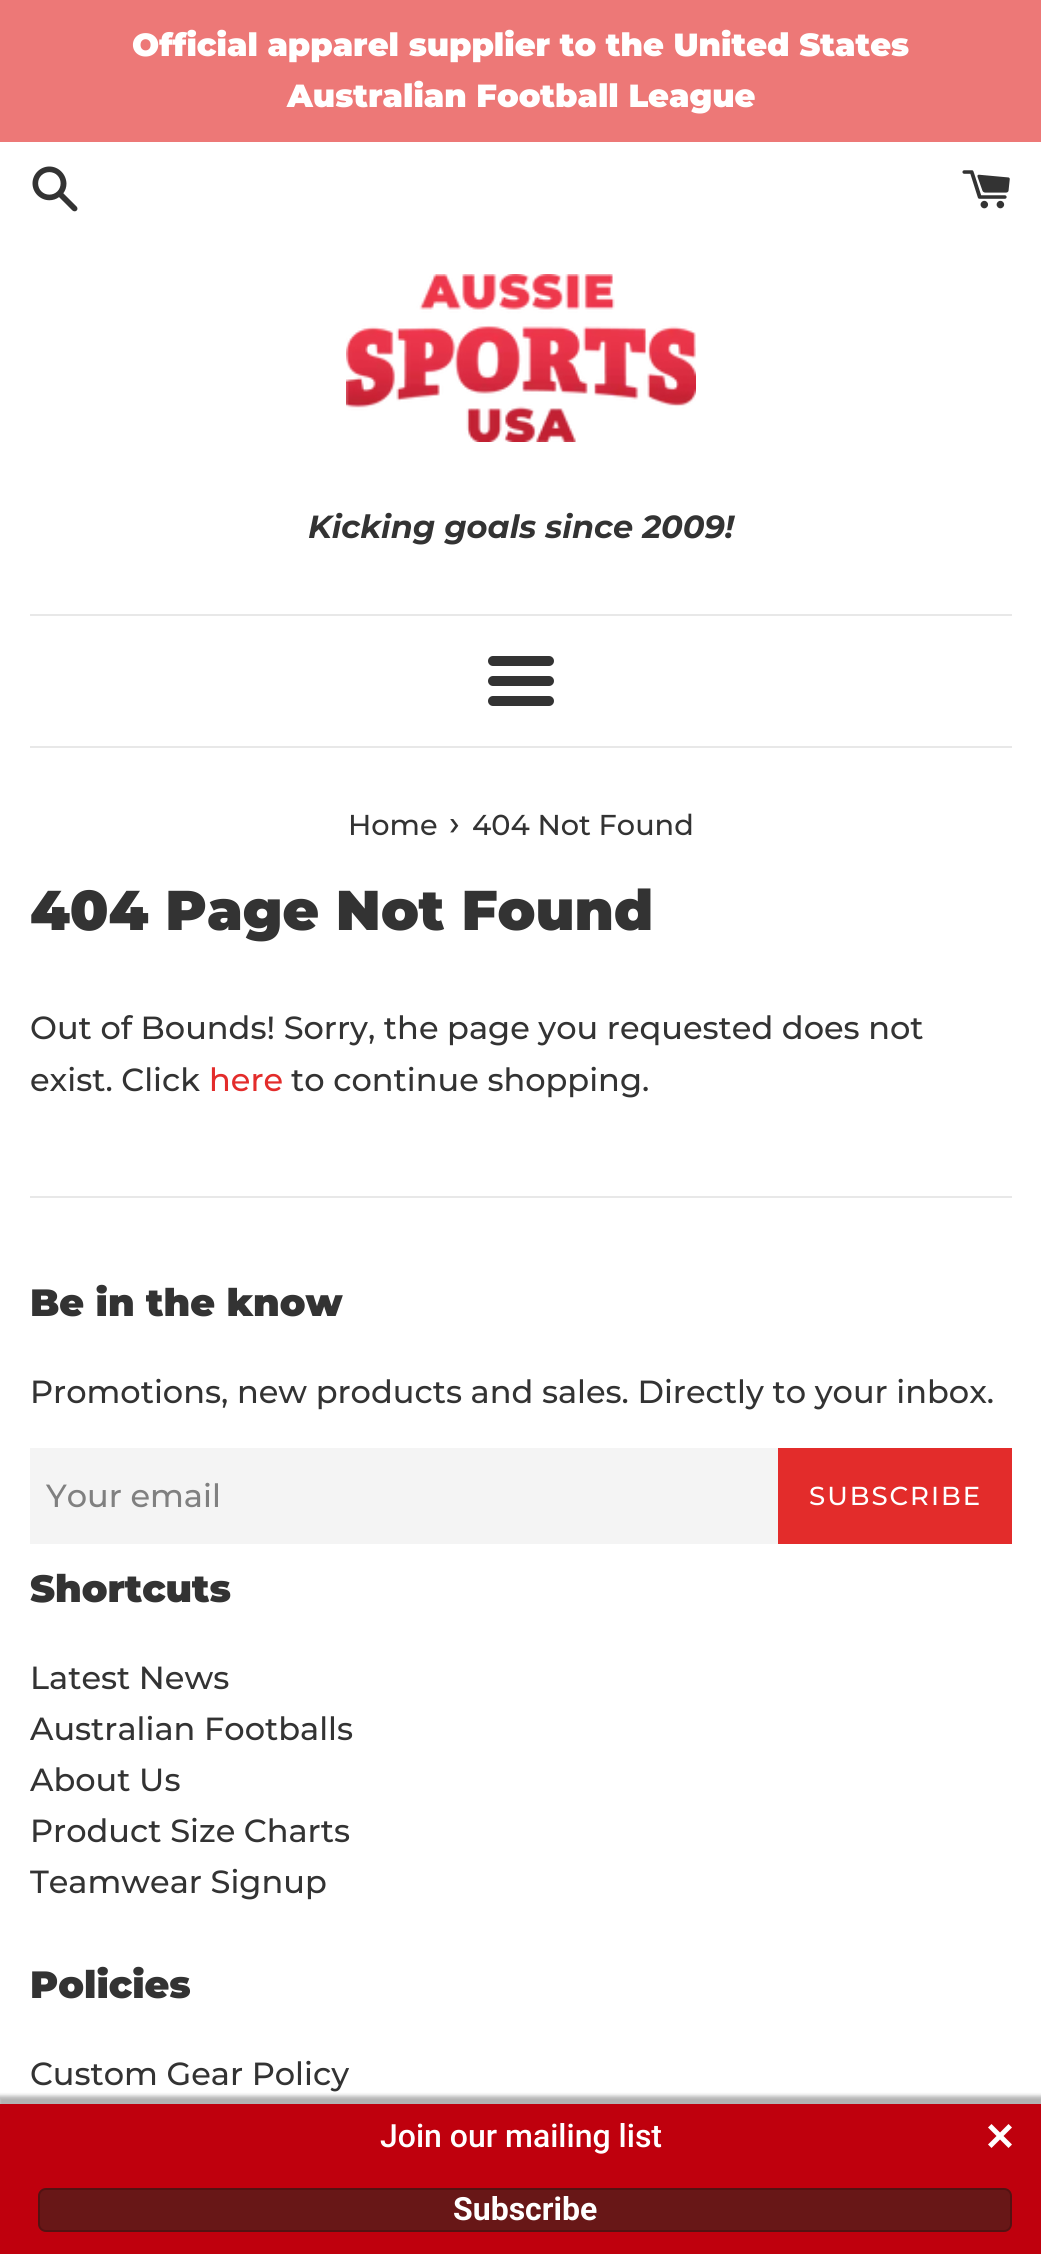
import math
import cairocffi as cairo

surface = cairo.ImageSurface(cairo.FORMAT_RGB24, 1041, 2254)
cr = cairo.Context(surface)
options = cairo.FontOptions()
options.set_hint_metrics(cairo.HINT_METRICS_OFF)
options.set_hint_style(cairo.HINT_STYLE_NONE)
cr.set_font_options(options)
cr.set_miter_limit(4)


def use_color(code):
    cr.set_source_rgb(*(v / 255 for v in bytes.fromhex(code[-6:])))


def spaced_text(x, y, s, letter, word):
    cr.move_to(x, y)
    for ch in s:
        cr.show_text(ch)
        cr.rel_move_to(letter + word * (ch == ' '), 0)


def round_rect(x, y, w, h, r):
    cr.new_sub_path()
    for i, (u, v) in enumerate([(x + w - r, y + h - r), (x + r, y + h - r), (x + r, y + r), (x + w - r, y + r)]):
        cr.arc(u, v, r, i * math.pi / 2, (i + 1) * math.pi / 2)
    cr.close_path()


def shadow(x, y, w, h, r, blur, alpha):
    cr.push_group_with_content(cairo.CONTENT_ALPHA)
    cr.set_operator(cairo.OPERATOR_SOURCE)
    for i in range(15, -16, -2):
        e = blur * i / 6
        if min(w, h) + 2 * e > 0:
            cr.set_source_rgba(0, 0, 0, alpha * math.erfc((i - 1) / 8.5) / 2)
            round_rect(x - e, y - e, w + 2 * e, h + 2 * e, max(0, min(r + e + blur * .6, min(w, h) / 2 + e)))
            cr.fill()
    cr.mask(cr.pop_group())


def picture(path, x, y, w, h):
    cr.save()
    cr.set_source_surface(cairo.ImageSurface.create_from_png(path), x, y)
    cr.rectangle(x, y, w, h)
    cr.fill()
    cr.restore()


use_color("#ffffff")
cr.paint()
use_color("#ed7877")
cr.rectangle(0, 0, 1041, 142)
cr.fill()
cr.select_font_face("Montserrat Black")
cr.set_font_size(32)
use_color("#ffffff")
cr.move_to(132, 56)
cr.show_text("Official apparel supplier to the United States")
cr.move_to(287, 107)
cr.show_text("Australian Football League")
picture("img1.png", 32, 166, 46, 46)
picture("img2.png", 962, 170, 48, 39)
picture("img3.png", 346, 274, 350, 168)
cr.select_font_face("Montserrat", cairo.FONT_SLANT_ITALIC, cairo.FONT_WEIGHT_BOLD)
use_color("#333333")
cr.move_to(308, 538)
cr.show_text("Kicking goals since 2009!")
use_color("#e8e8e8")
cr.rectangle(30, 614, 982, 2)
cr.fill()
use_color("#333333")
round_rect(488, 656, 66, 10, 5)
cr.fill()
round_rect(488, 676, 66, 10, 5)
cr.fill()
round_rect(488, 696, 66, 10, 5)
cr.fill()
use_color("#e8e8e8")
cr.rectangle(30, 746, 982, 2)
cr.fill()
cr.select_font_face("Montserrat Medium")
cr.set_font_size(28.75)
use_color("#333333")
cr.move_to(348, 835)
cr.show_text("Home")
cr.set_font_size(35)
cr.move_to(449, 835)
cr.show_text("›")
cr.set_font_size(28.75)
cr.move_to(472, 835)
cr.show_text("404 Not Found")
cr.select_font_face("Montserrat Black")
cr.set_font_size(56)
cr.move_to(30, 930)
cr.show_text("404 Page Not Found")
cr.select_font_face("Montserrat Medium")
cr.set_font_size(32)
cr.move_to(30, 1039)
cr.show_text("Out of Bounds! Sorry, the page you requested does not")
cr.move_to(30, 1091)
cr.show_text("exist. Click")
use_color("#e32c2b")
cr.move_to(209, 1091)
cr.show_text("here")
use_color("#333333")
cr.move_to(291, 1091)
cr.show_text("to continue shopping.")
use_color("#e8e8e8")
cr.rectangle(30, 1196, 982, 2)
cr.fill()
cr.select_font_face("Montserrat Black")
cr.set_font_size(38)
use_color("#333333")
cr.move_to(30, 1316)
cr.show_text("Be in the know")
cr.select_font_face("Montserrat Medium")
cr.set_font_size(32)
cr.move_to(30, 1403)
cr.show_text("Promotions, new products and sales. Directly to your inbox.")
use_color("#f4f4f4")
cr.rectangle(30, 1448, 748, 96)
cr.fill()
use_color("#808080")
cr.move_to(46, 1507)
cr.show_text("Your email")
use_color("#e32c2b")
cr.rectangle(778, 1448, 234, 96)
cr.fill()
cr.set_font_size(26)
use_color("#ffffff")
spaced_text(809, 1505, "SUBSCRIBE", 2, 0)
cr.select_font_face("Montserrat Black")
cr.set_font_size(38)
use_color("#333333")
cr.move_to(30, 1602)
cr.show_text("Shortcuts")
cr.select_font_face("Montserrat Medium")
cr.set_font_size(32)
cr.move_to(30, 1689)
cr.show_text("Latest News")
cr.move_to(30, 1740)
cr.show_text("Australian Footballs")
cr.move_to(30, 1791)
cr.show_text("About Us")
cr.move_to(30, 1842)
cr.show_text("Product Size Charts")
cr.move_to(30, 1893)
cr.show_text("Teamwear Signup")
cr.select_font_face("Montserrat Black")
cr.set_font_size(38)
cr.move_to(30, 1998)
cr.show_text("Policies")
cr.select_font_face("Montserrat Medium")
cr.set_font_size(32)
cr.move_to(30, 2085)
cr.show_text("Custom Gear Policy")
use_color("#000000")
shadow(-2, 2096, 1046, 154, 0, 2, 0.3)
use_color("#bf000d")
cr.rectangle(0, 2104, 1041, 150)
cr.fill()
cr.select_font_face("Roboto Medium")
use_color("#ffffff")
cr.move_to(380, 2147)
cr.show_text("Join our mailing list")
use_color("#681717")
round_rect(38, 2188, 974, 44, 8)
cr.fill()
round_rect(39, 2189, 972, 42, 7)
cr.set_source_rgba(0, 0, 0, 0.2)
cr.stroke()
cr.select_font_face("Roboto", cairo.FONT_SLANT_NORMAL, cairo.FONT_WEIGHT_BOLD)
use_color("#ffffff")
cr.move_to(453, 2220)
cr.show_text("Subscribe")
picture("img4.png", 988, 2124, 24, 24)
surface.write_to_png("result.png")
